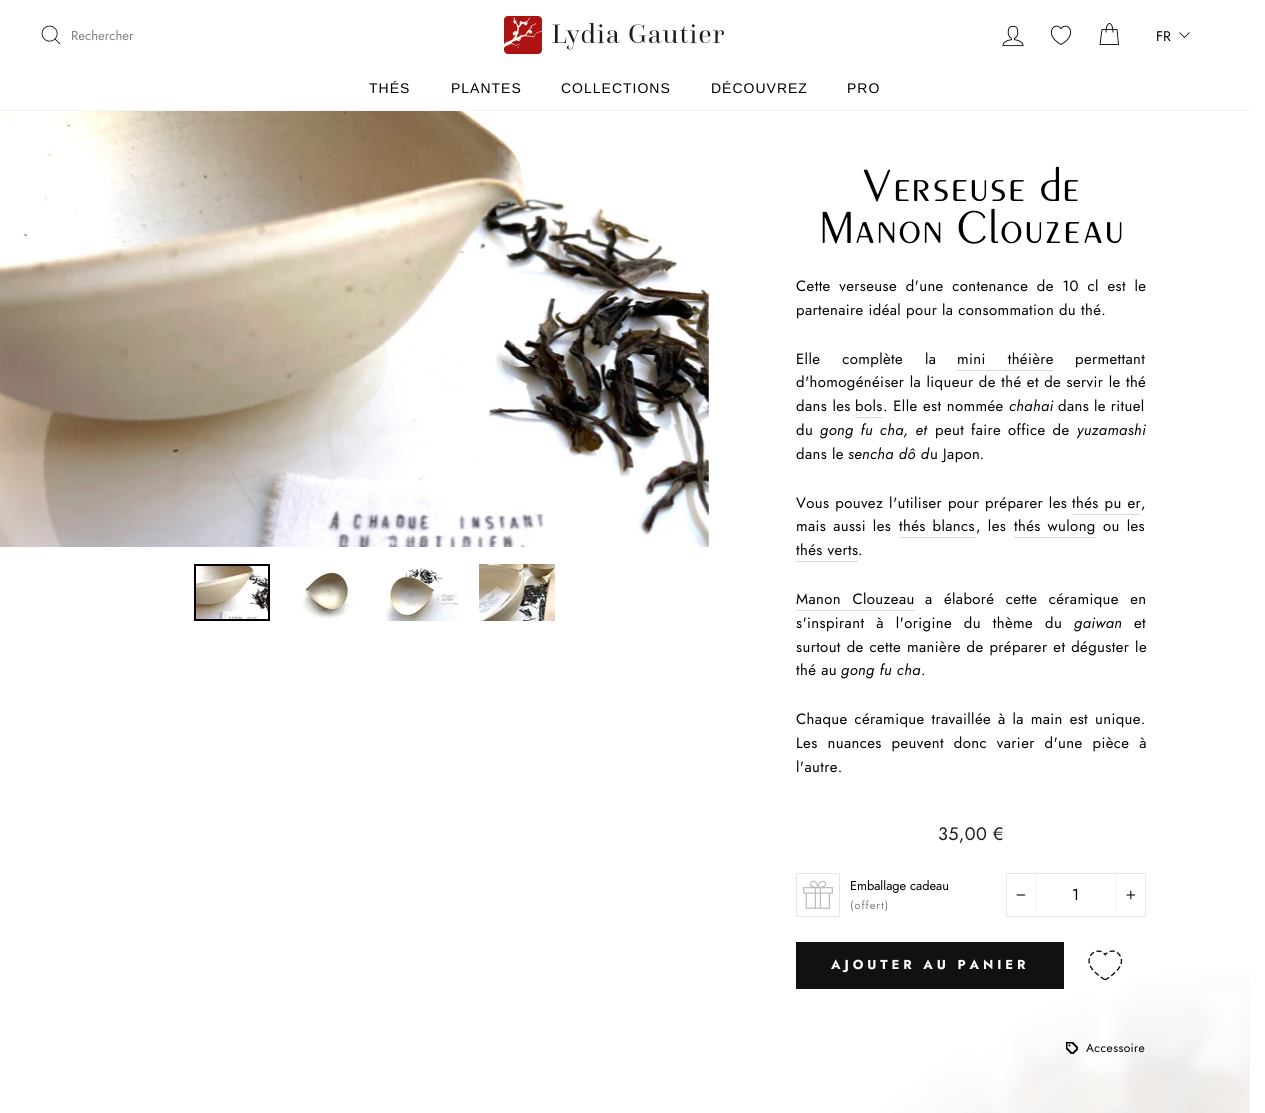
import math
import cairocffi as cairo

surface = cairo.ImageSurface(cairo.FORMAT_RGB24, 1265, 1113)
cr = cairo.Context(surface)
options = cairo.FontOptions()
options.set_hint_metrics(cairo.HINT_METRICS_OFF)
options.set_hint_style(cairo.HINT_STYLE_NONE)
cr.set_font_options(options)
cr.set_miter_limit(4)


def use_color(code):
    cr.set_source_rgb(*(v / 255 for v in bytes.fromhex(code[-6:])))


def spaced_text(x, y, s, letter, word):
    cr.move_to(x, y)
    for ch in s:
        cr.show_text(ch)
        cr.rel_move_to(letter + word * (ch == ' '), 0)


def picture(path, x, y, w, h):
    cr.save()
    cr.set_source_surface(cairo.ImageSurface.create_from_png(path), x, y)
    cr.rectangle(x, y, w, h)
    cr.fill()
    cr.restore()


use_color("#ffffff")
cr.paint()
use_color("#f5f5f5")
cr.rectangle(0, 110, 1250, 1)
cr.fill()
picture("img1.png", 41, 25, 20, 20)
cr.select_font_face("Jost")
cr.set_font_size(13)
use_color("#808080")
cr.move_to(71, 40)
cr.show_text("Rechercher")
picture("img2.png", 504, 16, 220, 38)
picture("img3.png", 1002, 25, 22, 22)
cr.new_path()
cr.move_to(1061, 44.5)
cr.curve_to(1043, 34.5, 1054.5, 20.5, 1061, 28.5)
cr.curve_to(1067.5, 20.5, 1079, 34.5, 1061, 44.5)
cr.close_path()
use_color("#000000")
cr.set_line_width(0.9)
cr.stroke()
cr.new_path()
cr.move_to(1106, 32.5)
cr.curve_to(1106, 20.5, 1113, 20.5, 1113, 32.5)
cr.move_to(1102, 29.5)
cr.line_to(1117, 29.5)
cr.line_to(1118.5, 44.5)
cr.line_to(1100, 44.5)
cr.close_path()
cr.stroke()
cr.set_font_size(14)
cr.move_to(1156, 41)
cr.show_text("FR")
cr.new_path()
cr.move_to(1179.5, 32.5)
cr.line_to(1184.5, 37.5)
cr.line_to(1189.5, 32.5)
cr.set_line_width(0.8)
cr.stroke()
cr.select_font_face("Liberation Sans")
spaced_text(369, 93, "THÉS", 1, 0)
spaced_text(451, 93, "PLANTES", 1, 0)
spaced_text(561, 93, "COLLECTIONS", 1, 0)
spaced_text(711, 93, "DÉCOUVREZ", 1, 0)
spaced_text(847, 93, "PRO", 1, 0)
picture("img4.png", 0, 111, 709, 436)
picture("img5.png", 196, 566, 72, 53)
cr.rectangle(195, 565, 74, 55)
cr.set_line_width(2)
cr.stroke()
picture("img6.png", 302, 572, 51, 47)
picture("img7.png", 386, 564, 74, 57)
picture("img8.png", 479, 564, 76, 57)
cr.select_font_face("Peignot")
cr.set_font_size(48)
spaced_text(860, 201, "Verseuse de", 1, 0)
spaced_text(817, 243, "Manon Clouzeau", 1, 0)
cr.select_font_face("Jost")
cr.set_font_size(14.9)
spaced_text(796, 291, "Cette verseuse d'une contenance de 10 cl est le", 0.4, 3.75)
spaced_text(796, 315, "partenaire idéal pour la consommation du thé.", 0.4, 0)
spaced_text(796, 364, "Elle complète la", 0.4, 17)
spaced_text(957, 364, "mini théière", 0.4, 17)
use_color("#d9d9d9")
cr.rectangle(957, 370, 97, 1)
cr.fill()
use_color("#000000")
spaced_text(1075, 364, "permettant", 0.4, 0)
spaced_text(796, 387, "d'homogénéiser la liqueur de thé et de servir le thé", 0.4, 0.5)
spaced_text(796, 411, "dans les", 0.4, 0.5)
spaced_text(855, 411, "bols", 0.4, 0)
use_color("#d9d9d9")
cr.rectangle(855, 417, 28, 1)
cr.fill()
use_color("#000000")
spaced_text(883, 411, ". Elle est nommée", 0.4, 0.5)
cr.select_font_face("Jost", cairo.FONT_SLANT_ITALIC)
spaced_text(1009, 411, "chahai", 0.4, 0)
cr.select_font_face("Jost")
spaced_text(1058, 411, "dans le rituel", 0.4, 0)
spaced_text(796, 435, "du", 0.4, 0)
cr.select_font_face("Jost", cairo.FONT_SLANT_ITALIC)
spaced_text(820, 435, "gong fu cha, et", 0.4, 2)
cr.select_font_face("Jost")
spaced_text(935, 435, "peut faire office de", 0.4, 2)
cr.select_font_face("Jost", cairo.FONT_SLANT_ITALIC)
spaced_text(1077, 435, "yuzamashi", 0.4, 0)
cr.select_font_face("Jost")
spaced_text(796, 459, "dans le", 0.4, 0)
cr.select_font_face("Jost", cairo.FONT_SLANT_ITALIC)
spaced_text(848, 459, "sencha dô d", 0.4, 0)
cr.select_font_face("Jost")
spaced_text(930, 459, "u Japon", 0.4, 0)
cr.select_font_face("Jost", cairo.FONT_SLANT_ITALIC)
spaced_text(980, 459, ".", 0.4, 0)
cr.select_font_face("Jost")
spaced_text(796, 508, "Vous pouvez l'utiliser pour préparer les", 0.4, 1)
spaced_text(1072, 508, "thés pu er", 0.4, 1)
use_color("#d9d9d9")
cr.rectangle(1072, 514, 69, 1)
cr.fill()
use_color("#000000")
spaced_text(1141, 508, ",", 0.4, 0)
spaced_text(796, 531, "mais aussi les", 0.4, 2)
spaced_text(899, 531, "thés blancs", 0.4, 2)
use_color("#d9d9d9")
cr.rectangle(899, 537, 77, 1)
cr.fill()
use_color("#000000")
spaced_text(976, 531, ", les", 0.4, 2)
spaced_text(1014, 531, "thés wulong", 0.4, 2)
use_color("#d9d9d9")
cr.rectangle(1014, 537, 82, 1)
cr.fill()
use_color("#000000")
spaced_text(1103, 531, "ou les", 0.4, 2)
spaced_text(796, 555, "thés verts", 0.4, 0)
use_color("#d9d9d9")
cr.rectangle(796, 561, 62, 1)
cr.fill()
use_color("#000000")
spaced_text(858, 555, ".", 0.4, 0)
spaced_text(796, 604, "Manon Clouzeau", 0.4, 6.5)
use_color("#d9d9d9")
cr.rectangle(796, 610, 118, 1)
cr.fill()
use_color("#000000")
spaced_text(925, 604, "a élaboré cette céramique en", 0.4, 6.5)
spaced_text(796, 628, "s'inspirant à l'origine du thème du", 0.4, 7)
cr.select_font_face("Jost", cairo.FONT_SLANT_ITALIC)
spaced_text(1074, 628, "gaiwan", 0.4, 0)
cr.select_font_face("Jost")
spaced_text(1134, 628, "et", 0.4, 0)
spaced_text(796, 652, "surtout de cette manière de préparer et déguster le", 0.4, 1)
spaced_text(796, 675, "thé au", 0.4, 0)
cr.select_font_face("Jost", cairo.FONT_SLANT_ITALIC)
spaced_text(841, 675, "gong fu cha", 0.4, 0)
cr.select_font_face("Jost")
spaced_text(921, 675, ".", 0.4, 0)
spaced_text(796, 724, "Chaque céramique travaillée à la main est unique.", 0.4, 2)
spaced_text(796, 748, "Les nuances peuvent donc varier d'une pièce à", 0.4, 5)
spaced_text(796, 772, "l'autre.", 0.4, 0)
cr.set_font_size(18)
use_color("#1c1d1d")
spaced_text(938, 840, "35,00 €", 0.4, 0)
cr.rectangle(796.5, 873.5, 43, 43)
use_color("#e8e8e1")
cr.set_line_width(1)
cr.stroke()
picture("img9.png", 803, 880, 30, 29)
cr.set_font_size(12.75)
use_color("#000000")
cr.move_to(850, 890)
cr.show_text("Emballage cadeau")
cr.set_font_size(11)
use_color("#7e7e77")
spaced_text(850, 909, "(offert)", 1, 0)
cr.rectangle(1006.5, 873.5, 139, 43)
use_color("#e8e8e1")
cr.stroke()
use_color("#f2f2f2")
cr.rectangle(1036, 873, 1, 44)
cr.fill()
picture("img10.png", 1016, 894, 10, 2)
cr.set_font_size(16)
use_color("#000000")
spaced_text(1072, 900, "1", 0.4, 0)
use_color("#f2f2f2")
cr.rectangle(1115, 873, 1, 44)
cr.fill()
picture("img11.png", 1126, 890, 10, 10)
picture("img14.png", 874, 967, 376, 146)
gradient = cairo.RadialGradient(0, 0, 0, 0, 0, 1)
gradient.set_matrix(cairo.Matrix(1 / 625, 0, 0, 1 / 724, -1 * 1250 / 625, -1 * 1686 / 724))
gradient.add_color_stop_rgba(0, 1, 1, 1, 0)
gradient.add_color_stop_rgba(1, 1, 1, 1, 1)
cr.set_source(gradient)
cr.rectangle(874, 967, 376, 146)
cr.fill()
use_color("#111111")
cr.rectangle(796, 942, 268, 47)
cr.fill()
cr.select_font_face("Jost", cairo.FONT_SLANT_NORMAL, cairo.FONT_WEIGHT_BOLD)
cr.set_font_size(13)
use_color("#ffffff")
spaced_text(831, 969, "AJOUTER AU PANIER", 3.9, 0)
picture("img12.png", 1088, 950, 35, 31)
picture("img13.png", 1066, 1042, 12, 12)
cr.select_font_face("Jost")
cr.set_font_size(12)
use_color("#000000")
spaced_text(1086, 1052, "Accessoire", 0.4, 0)
surface.write_to_png("result.png")
